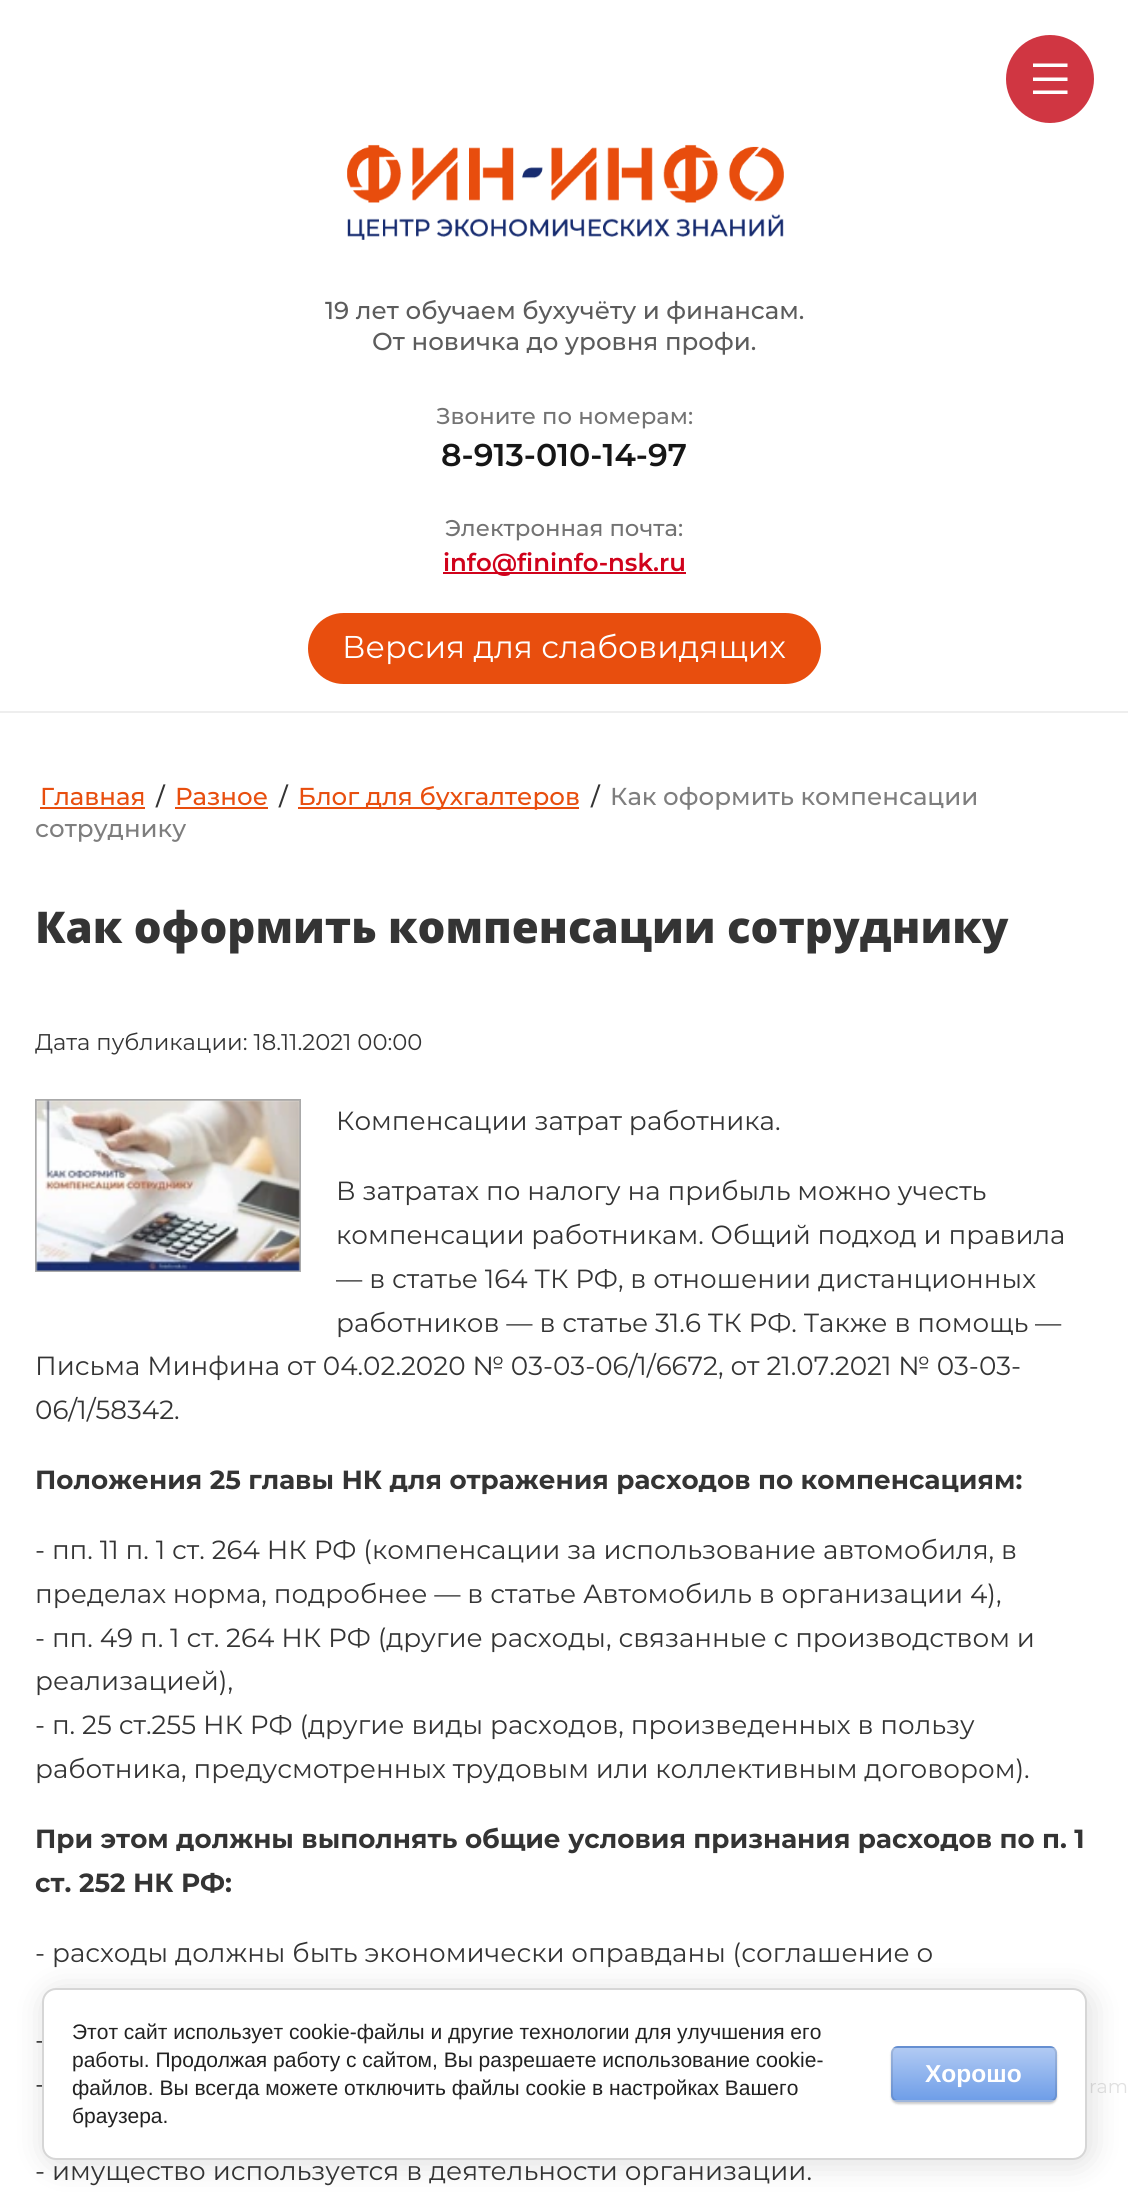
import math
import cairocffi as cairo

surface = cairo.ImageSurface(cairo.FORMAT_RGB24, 1128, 2200)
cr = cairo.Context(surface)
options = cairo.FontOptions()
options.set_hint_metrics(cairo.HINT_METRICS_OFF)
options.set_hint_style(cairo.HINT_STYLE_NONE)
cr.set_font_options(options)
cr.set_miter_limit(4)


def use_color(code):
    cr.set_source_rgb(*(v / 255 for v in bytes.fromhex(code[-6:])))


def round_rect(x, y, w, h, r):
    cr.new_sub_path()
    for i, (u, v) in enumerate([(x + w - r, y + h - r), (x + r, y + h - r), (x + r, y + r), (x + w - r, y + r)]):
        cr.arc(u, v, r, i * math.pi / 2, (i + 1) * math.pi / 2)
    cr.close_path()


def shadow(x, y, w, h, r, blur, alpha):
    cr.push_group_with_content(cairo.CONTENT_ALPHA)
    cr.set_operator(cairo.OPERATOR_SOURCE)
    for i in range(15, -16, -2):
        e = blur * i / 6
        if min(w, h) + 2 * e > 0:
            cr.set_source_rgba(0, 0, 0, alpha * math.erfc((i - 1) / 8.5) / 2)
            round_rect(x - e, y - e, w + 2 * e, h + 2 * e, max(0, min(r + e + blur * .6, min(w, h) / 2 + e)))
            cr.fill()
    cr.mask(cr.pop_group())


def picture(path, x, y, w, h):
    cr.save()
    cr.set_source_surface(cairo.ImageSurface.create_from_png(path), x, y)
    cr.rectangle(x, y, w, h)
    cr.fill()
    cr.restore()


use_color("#ffffff")
cr.paint()
use_color("#d03642")
cr.arc(1050, 79, 44, 0, 2 * math.pi)
cr.fill()
cr.save()
cr.rectangle(1033, 61, 35, 35)
cr.clip()
use_color("#ffffff")
cr.set_fill_rule(cairo.FILL_RULE_EVEN_ODD)
cr.new_path()
cr.move_to(1032.5, 67)
cr.line_to(1032.5, 63.5)
cr.line_to(1067.5, 63.5)
cr.line_to(1067.5, 67)
cr.close_path()
cr.move_to(1067.5, 81)
cr.line_to(1032.5, 81)
cr.line_to(1032.5, 77.5)
cr.line_to(1067.5, 77.5)
cr.close_path()
cr.move_to(1067.5, 94)
cr.line_to(1032.5, 94)
cr.line_to(1032.5, 90.5)
cr.line_to(1067.5, 90.5)
cr.close_path()
cr.fill()
cr.restore()
picture("img1.png", 347, 144, 437, 96)
cr.select_font_face("Montserrat Medium")
cr.set_font_size(24.5)
use_color("#5c5c5c")
cr.move_to(325, 319)
cr.show_text("19 лет обучаем бухучёту и финансам.")
cr.move_to(372, 350)
cr.show_text("От новичка до уровня профи.")
cr.set_font_size(22.75)
use_color("#737373")
cr.move_to(436, 424)
cr.show_text("Звоните по номерам:")
cr.select_font_face("Montserrat SemiBold")
cr.set_font_size(31.5)
use_color("#161616")
cr.move_to(441, 466)
cr.show_text("8-913-010-14-97")
cr.select_font_face("Montserrat Medium")
cr.set_font_size(22.75)
use_color("#737373")
cr.move_to(445, 536)
cr.show_text("Электронная почта:")
use_color("#d0021b")
cr.rectangle(443, 572, 243, 2)
cr.fill()
cr.select_font_face("Montserrat SemiBold")
cr.set_font_size(24.5)
cr.move_to(443, 571)
cr.show_text("info@fininfo-nsk.ru")
use_color("#e84e0e")
round_rect(308, 613, 513, 71, 35.5)
cr.fill()
cr.select_font_face("Montserrat")
cr.set_font_size(31.5)
use_color("#ffffff")
cr.move_to(342, 658)
cr.show_text("Версия для слабовидящих")
use_color("#eeeeee")
cr.rectangle(0, 711, 1128, 2)
cr.fill()
cr.select_font_face("Montserrat Medium")
cr.set_font_size(24.5)
use_color("#e84e0e")
cr.move_to(40, 805)
cr.show_text("Главная")
cr.rectangle(40, 807, 105, 2)
cr.fill()
use_color("#343434")
cr.move_to(156, 805)
cr.show_text("/")
use_color("#e84e0e")
cr.move_to(175, 805)
cr.show_text("Разное")
cr.rectangle(175, 807, 93, 2)
cr.fill()
use_color("#343434")
cr.move_to(279, 805)
cr.show_text("/")
use_color("#e84e0e")
cr.rectangle(298, 807, 281, 2)
cr.fill()
cr.move_to(298, 805)
cr.show_text("Блог для бухгалтеров")
use_color("#343434")
cr.move_to(591, 805)
cr.show_text("/")
use_color("#7e7e7e")
cr.move_to(610, 805)
cr.show_text("Как оформить компенсации")
cr.move_to(35, 837)
cr.show_text("сотруднику")
cr.select_font_face("Open Sans ExtraBold")
cr.set_font_size(43.75)
use_color("#343434")
cr.move_to(35, 943)
cr.show_text("Как оформить компенсации сотруднику")
cr.select_font_face("Montserrat")
cr.set_font_size(22.75)
cr.move_to(35, 1050)
cr.show_text("Дата публикации: 18.11.2021 00:00")
cr.rectangle(36, 1100, 264, 171)
use_color("#aaaaaa")
cr.stroke()
picture("img2.png", 36, 1100, 264, 171)
cr.set_font_size(26.25)
use_color("#343434")
cr.move_to(336, 1130)
cr.show_text("Компенсации затрат работника.")
cr.move_to(336, 1200)
cr.show_text("В затратах по налогу на прибыль можно учесть")
cr.move_to(336, 1244)
cr.show_text("компенсации работникам. Общий подход и правила")
cr.move_to(336, 1288)
cr.show_text("— в статье 164 ТК РФ, в отношении дистанционных")
cr.move_to(336, 1332)
cr.show_text("работников — в статье 31.6 ТК РФ. Также в помощь —")
cr.move_to(35, 1375)
cr.show_text("Письма Минфина от 04.02.2020 № 03-03-06/1/6672, от 21.07.2021 № 03-03-")
cr.move_to(35, 1419)
cr.show_text("06/1/58342.")
cr.select_font_face("Montserrat", cairo.FONT_SLANT_NORMAL, cairo.FONT_WEIGHT_BOLD)
cr.move_to(35, 1489)
cr.show_text("Положения 25 главы НК для отражения расходов по компенсациям:")
cr.select_font_face("Montserrat")
cr.move_to(35, 1559)
cr.show_text("- пп. 11 п. 1 ст. 264 НК РФ (компенсации за использование автомобиля, в")
cr.move_to(35, 1603)
cr.show_text("пределах норма, подробнее — в статье Автомобиль в организации 4),")
cr.move_to(35, 1647)
cr.show_text("- пп. 49 п. 1 ст. 264 НК РФ (другие расходы, связанные с производством и")
cr.move_to(35, 1690)
cr.show_text("реализацией),")
cr.move_to(35, 1734)
cr.show_text("- п. 25 ст.255 НК РФ (другие виды расходов, произведенных в пользу")
cr.move_to(35, 1778)
cr.show_text("работника, предусмотренных трудовым или коллективным договором).")
cr.select_font_face("Montserrat", cairo.FONT_SLANT_NORMAL, cairo.FONT_WEIGHT_BOLD)
cr.move_to(35, 1848)
cr.show_text("При этом должны выполнять общие условия признания расходов по п. 1")
cr.move_to(35, 1892)
cr.show_text("ст. 252 НК РФ:")
cr.select_font_face("Montserrat")
cr.move_to(35, 1962)
cr.show_text("- расходы должны быть экономически оправданы (соглашение о")
cr.move_to(35, 2049)
cr.show_text("-")
cr.move_to(35, 2093)
cr.show_text("-")
cr.move_to(35, 2180)
cr.show_text("- имущество используется в деятельности организации.")
cr.set_font_size(19)
use_color("#e1e1e1")
cr.move_to(1089, 2093)
cr.show_text("ram")
use_color("#000000")
shadow(46, 1992, 1044, 171, 14, 16, 0.14)
use_color("#ffffff")
round_rect(43, 1989, 1043, 170, 13)
cr.fill_preserve()
use_color("#d6d6d6")
cr.stroke()
cr.select_font_face("Liberation Sans")
cr.set_font_size(21)
use_color("#212121")
cr.move_to(72, 2039)
cr.show_text("Этот сайт использует cookie-файлы и другие технологии для улучшения его")
cr.move_to(72, 2067)
cr.show_text("работы. Продолжая работу с сайтом, Вы разрешаете использование cookie-")
cr.move_to(72, 2095)
cr.show_text("файлов. Вы всегда можете отключить файлы cookie в настройках Вашего")
cr.move_to(72, 2123)
cr.show_text("браузера.")
use_color("#000000")
shadow(891, 2048, 166, 56, 7, 1, 0.2)
cr.save()
round_rect(891, 2046, 166, 56, 7)
cr.clip()
gradient = cairo.LinearGradient(974, 1995, 974, 2048)
gradient.add_color_stop_rgba(0, 0.694, 0.792, 0.953, 1)
gradient.add_color_stop_rgba(1, 0.435, 0.62, 0.91, 1)
cr.set_source(gradient)
cr.rectangle(891, 2046, 166, 2)
cr.fill()
gradient = cairo.LinearGradient(974, 2048, 974, 2100)
gradient.add_color_stop_rgba(0, 0.694, 0.792, 0.953, 1)
gradient.add_color_stop_rgba(1, 0.435, 0.62, 0.91, 1)
cr.set_source(gradient)
cr.rectangle(891, 2048, 166, 52)
cr.fill()
gradient = cairo.LinearGradient(974, 2100, 974, 2153)
gradient.add_color_stop_rgba(0, 0.694, 0.792, 0.953, 1)
gradient.add_color_stop_rgba(1, 0.435, 0.62, 0.91, 1)
cr.set_source(gradient)
cr.rectangle(891, 2100, 166, 2)
cr.fill()
cr.restore()
round_rect(892, 2047, 164, 54, 6)
cr.set_source_rgba(0, 0, 0, 0.1)
cr.stroke()
cr.select_font_face("Liberation Sans", cairo.FONT_SLANT_NORMAL, cairo.FONT_WEIGHT_BOLD)
cr.set_font_size(24.5)
use_color("#ffffff")
cr.move_to(925, 2082)
cr.show_text("Хорошо")
surface.write_to_png("result.png")
